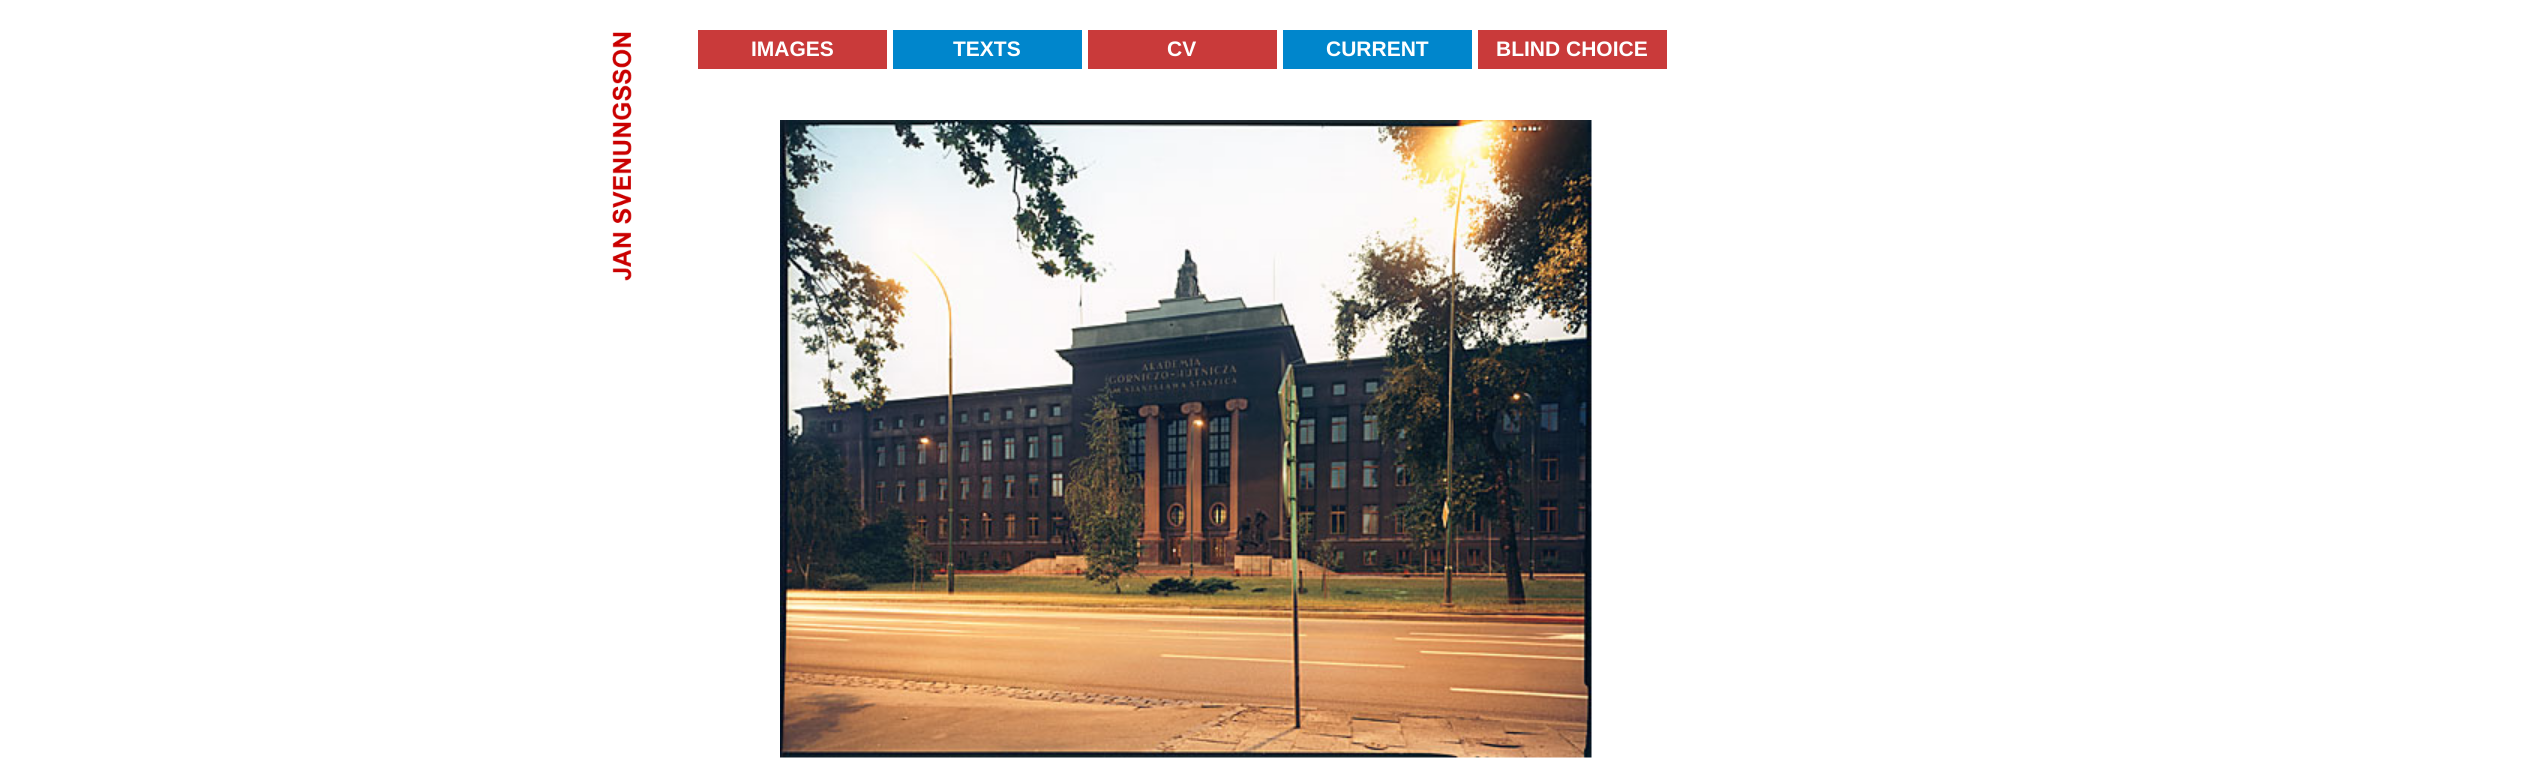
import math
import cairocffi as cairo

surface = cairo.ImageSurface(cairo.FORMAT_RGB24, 2544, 765)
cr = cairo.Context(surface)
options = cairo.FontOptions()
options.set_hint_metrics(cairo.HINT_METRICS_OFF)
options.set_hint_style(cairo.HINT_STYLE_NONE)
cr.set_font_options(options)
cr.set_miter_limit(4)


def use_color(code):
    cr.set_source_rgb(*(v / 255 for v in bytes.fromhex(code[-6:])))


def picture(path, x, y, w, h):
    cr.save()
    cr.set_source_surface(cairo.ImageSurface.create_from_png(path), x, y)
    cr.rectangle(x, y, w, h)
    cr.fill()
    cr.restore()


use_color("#ffffff")
cr.paint()
picture("img1.png", 612, 32, 20, 249)
use_color("#c93a3a")
cr.rectangle(698, 30, 189, 39)
cr.fill()
cr.select_font_face("Liberation Sans", cairo.FONT_SLANT_NORMAL, cairo.FONT_WEIGHT_BOLD)
cr.set_font_size(21)
use_color("#ffffff")
cr.move_to(751, 56)
cr.show_text("IMAGES")
use_color("#0086cc")
cr.rectangle(893, 30, 189, 39)
cr.fill()
use_color("#ffffff")
cr.move_to(953, 56)
cr.show_text("TEXTS")
use_color("#c93a3a")
cr.rectangle(1088, 30, 189, 39)
cr.fill()
use_color("#ffffff")
cr.move_to(1167, 56)
cr.show_text("CV")
use_color("#0086cc")
cr.rectangle(1283, 30, 189, 39)
cr.fill()
use_color("#ffffff")
cr.move_to(1326, 56)
cr.show_text("CURRENT")
use_color("#c93a3a")
cr.rectangle(1478, 30, 189, 39)
cr.fill()
use_color("#ffffff")
cr.move_to(1496, 56)
cr.show_text("BLIND CHOICE")
picture("img2.png", 780, 120, 812, 638)
surface.write_to_png("result.png")
